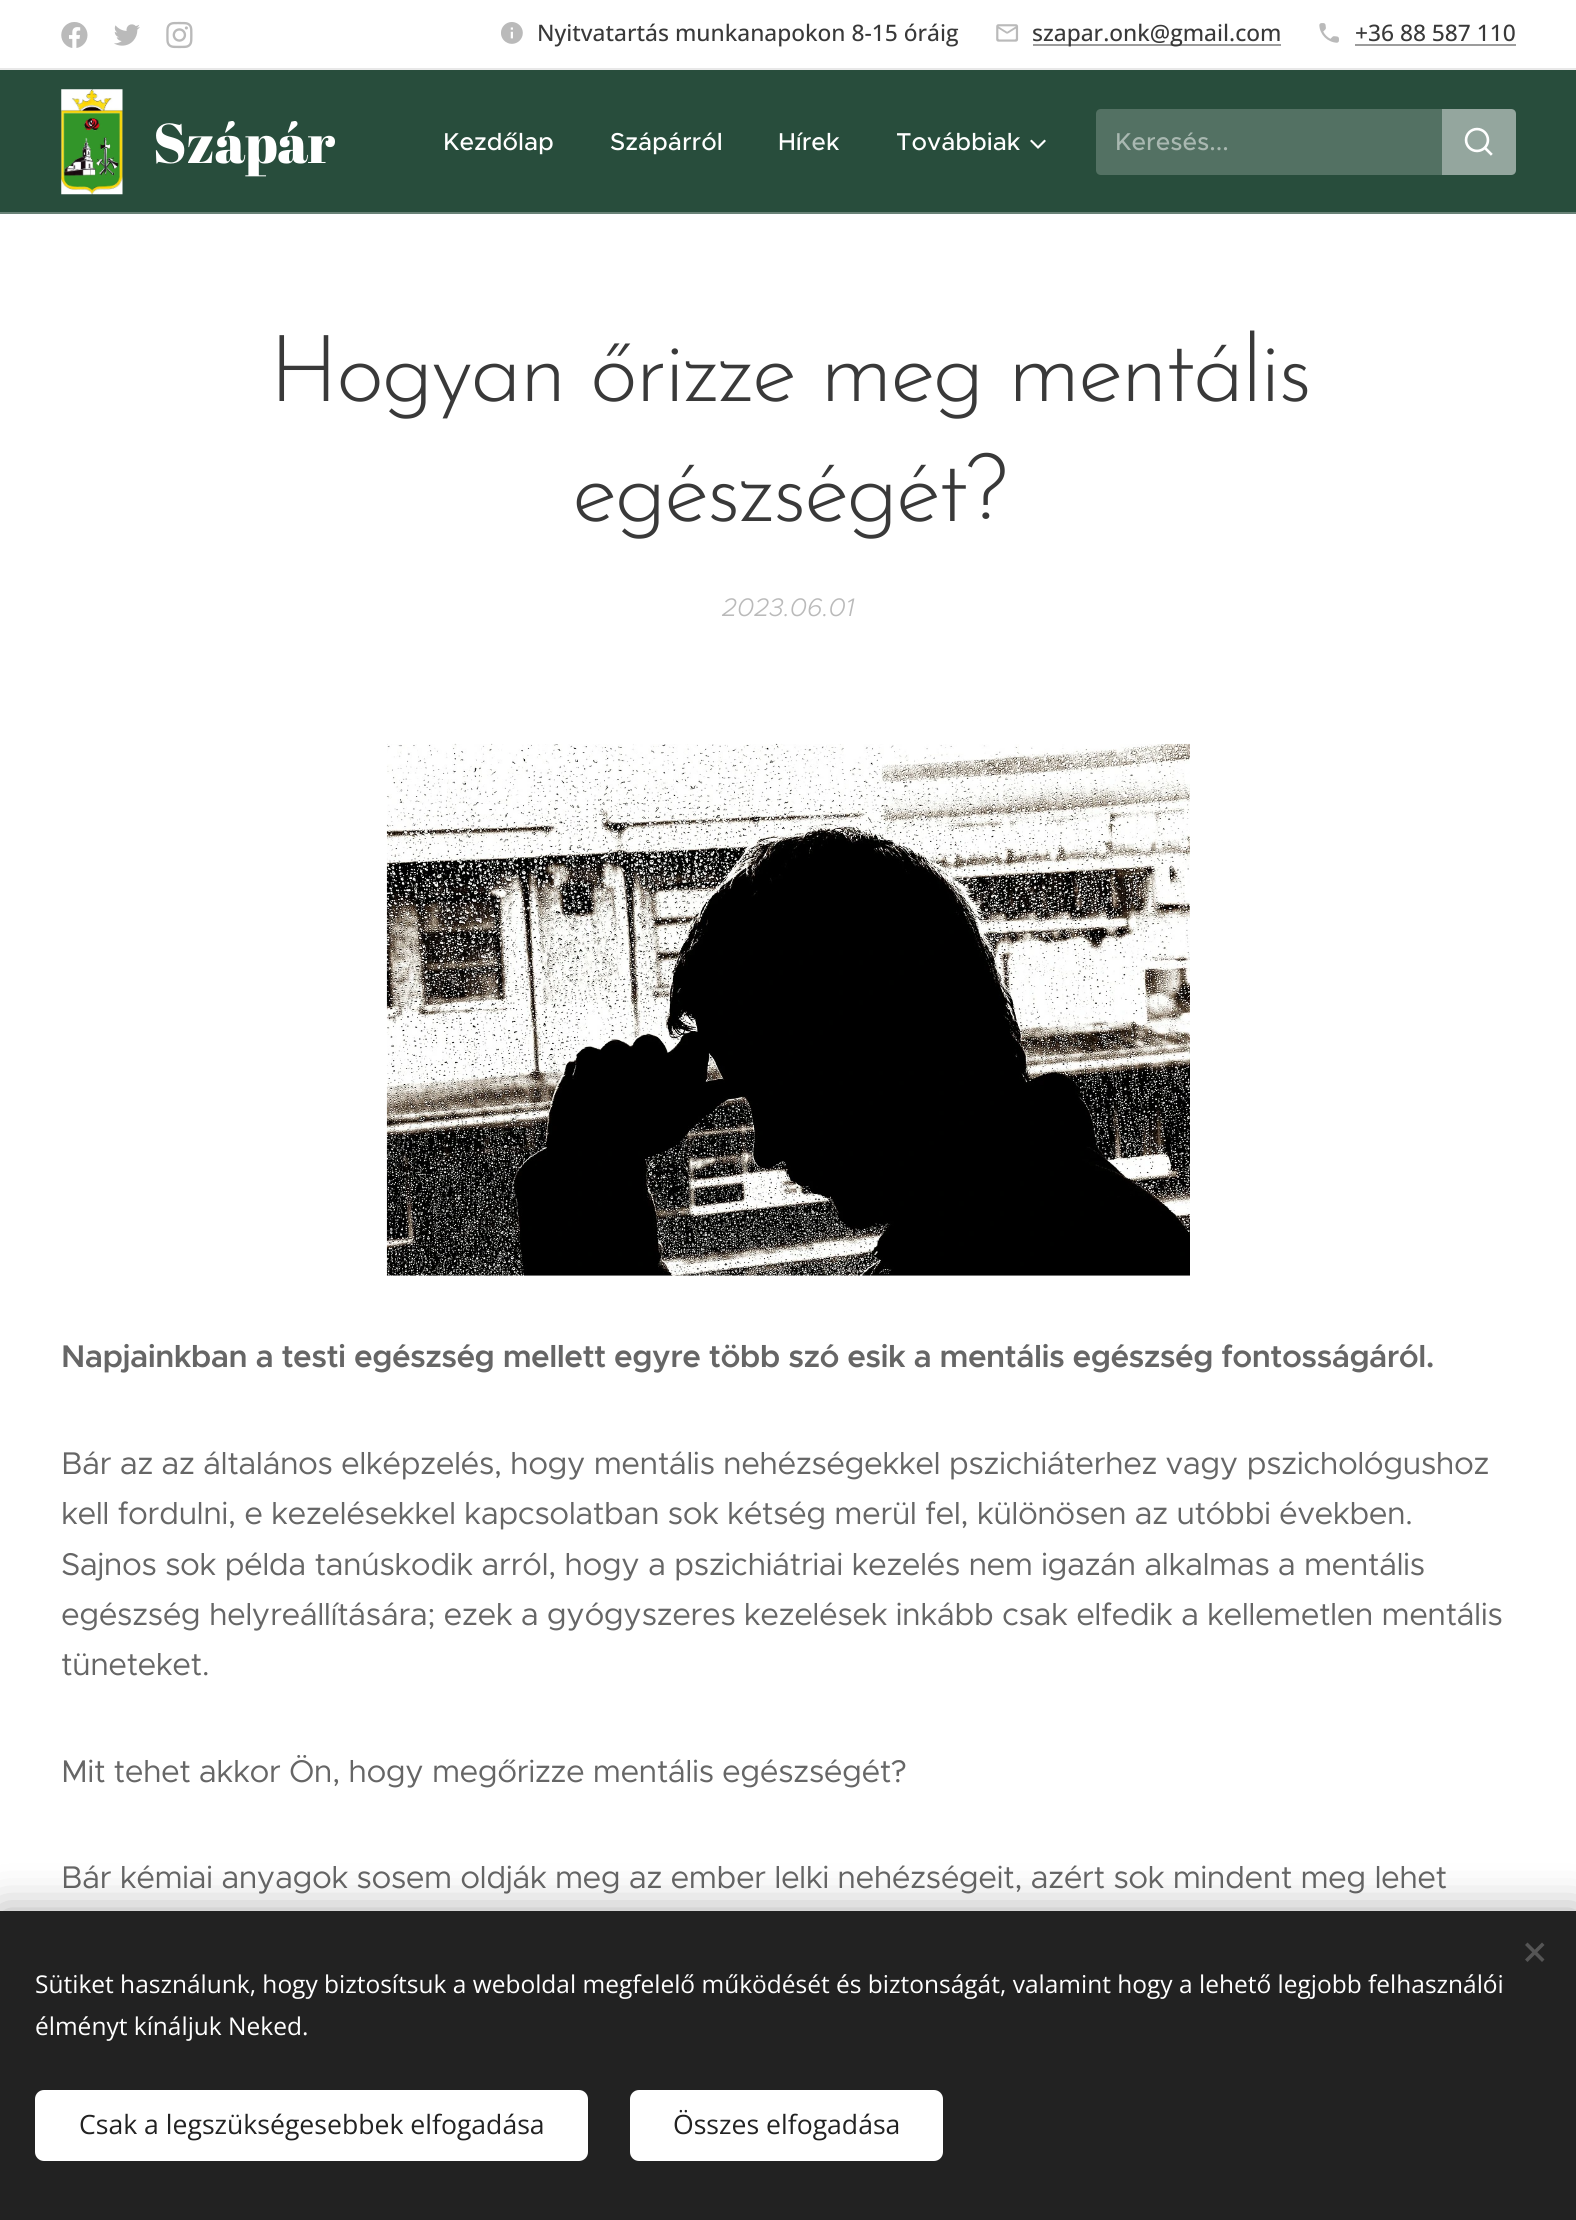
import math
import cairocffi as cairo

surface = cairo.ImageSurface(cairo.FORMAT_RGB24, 1576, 2220)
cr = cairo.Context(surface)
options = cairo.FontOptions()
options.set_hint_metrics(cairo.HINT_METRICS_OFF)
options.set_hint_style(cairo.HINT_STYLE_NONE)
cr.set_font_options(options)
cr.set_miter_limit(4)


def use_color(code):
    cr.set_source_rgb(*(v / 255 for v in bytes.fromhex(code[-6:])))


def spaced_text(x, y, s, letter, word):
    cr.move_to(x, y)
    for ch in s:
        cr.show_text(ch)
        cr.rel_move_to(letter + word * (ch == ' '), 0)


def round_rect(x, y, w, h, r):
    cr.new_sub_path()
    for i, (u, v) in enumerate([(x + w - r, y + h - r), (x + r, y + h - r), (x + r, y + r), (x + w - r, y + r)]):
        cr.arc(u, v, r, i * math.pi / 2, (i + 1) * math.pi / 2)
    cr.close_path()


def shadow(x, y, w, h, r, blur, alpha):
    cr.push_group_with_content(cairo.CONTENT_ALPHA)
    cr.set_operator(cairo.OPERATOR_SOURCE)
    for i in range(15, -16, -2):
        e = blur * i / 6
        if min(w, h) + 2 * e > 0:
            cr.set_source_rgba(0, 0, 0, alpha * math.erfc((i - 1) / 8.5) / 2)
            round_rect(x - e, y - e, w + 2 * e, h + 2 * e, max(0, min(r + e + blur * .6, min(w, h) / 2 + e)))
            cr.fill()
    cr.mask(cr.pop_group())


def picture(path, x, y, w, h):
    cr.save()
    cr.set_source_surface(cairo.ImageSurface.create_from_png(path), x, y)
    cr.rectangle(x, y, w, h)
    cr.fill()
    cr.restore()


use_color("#ffffff")
cr.paint()
picture("img1.png", 61, 22, 27, 26)
picture("img2.png", 114, 24, 26, 22)
picture("img3.png", 166, 21, 27, 28)
picture("img4.png", 501, 22, 22, 22)
cr.select_font_face("Open Sans Medium")
cr.set_font_size(22.75)
use_color("#393939")
cr.move_to(537, 41)
cr.show_text("Nyitvatartás munkanapokon 8-15 óráig")
picture("img5.png", 996, 24, 23, 18)
use_color("#9c9c9c")
cr.rectangle(1033, 44, 248, 2)
cr.fill()
use_color("#393939")
cr.move_to(1032, 41)
cr.show_text("szapar.onk@gmail.com")
picture("img6.png", 1319, 23, 20, 20)
cr.move_to(1355, 41)
cr.show_text("+36 88 587 110")
use_color("#9c9c9c")
cr.rectangle(1355, 44, 161, 2)
cr.fill()
use_color("#e8e8e8")
cr.rectangle(0, 68, 1576, 2)
cr.fill()
use_color("#284d3c")
cr.rectangle(0, 70, 1576, 142)
cr.fill()
picture("img7.png", 61, 89, 62, 106)
cr.select_font_face("Abril Fatface")
cr.set_font_size(56)
use_color("#ffffff")
spaced_text(153, 163, "Szápár", -0.55, 0)
cr.select_font_face("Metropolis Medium")
cr.set_font_size(24.5)
cr.move_to(443, 150)
cr.show_text("Kezdőlap")
cr.move_to(610, 150)
cr.show_text("Szápárról")
cr.move_to(778, 150)
cr.show_text("Hírek")
cr.move_to(896, 150)
cr.show_text("Továbbiak")
picture("img8.png", 1030, 139, 16, 10)
use_color("#537163")
cr.new_path()
cr.move_to(1101, 109)
cr.line_to(1442, 109)
cr.line_to(1442, 175)
cr.line_to(1101, 175)
cr.curve_to(1098, 175, 1096, 173, 1096, 170)
cr.line_to(1096, 114)
cr.curve_to(1096, 111, 1098, 109, 1101, 109)
cr.close_path()
cr.fill()
use_color("#a9b8b1")
cr.move_to(1115, 150)
cr.show_text("Keresés...")
use_color("#94a69e")
cr.new_path()
cr.move_to(1442, 109)
cr.line_to(1511, 109)
cr.curve_to(1514, 109, 1516, 111, 1516, 114)
cr.line_to(1516, 170)
cr.curve_to(1516, 173, 1514, 175, 1511, 175)
cr.line_to(1442, 175)
cr.close_path()
cr.fill()
picture("img9.png", 1464, 127, 29, 29)
use_color("#698277")
cr.rectangle(0, 212, 1576, 2)
cr.fill()
cr.select_font_face("Josefin Sans Light")
cr.set_font_size(92.75)
use_color("#393939")
spaced_text(269, 401, "Hogyan őrizze meg mentális", -2.75, 0)
spaced_text(572, 521, "egészségét?", -2.75, 0)
cr.select_font_face("Metropolis Light", cairo.FONT_SLANT_ITALIC)
cr.set_font_size(25.5)
use_color("#bababa")
cr.move_to(722, 616)
cr.show_text("2023.06.01")
picture("img10.png", 386, 743, 804, 533)
cr.select_font_face("Metropolis SemiBold")
cr.set_font_size(31.5)
use_color("#666666")
spaced_text(61, 1367, "Napjainkban a testi egészség mellett egyre több szó esik a mentális egészség fontosságáról.", -0.55, 0)
cr.select_font_face("Metropolis")
spaced_text(61, 1474, "Bár az az általános elképzelés, hogy mentális nehézségekkel pszichiáterhez vagy pszichológushoz", -0.55, 0)
spaced_text(61, 1524, "kell fordulni, e kezelésekkel kapcsolatban sok kétség merül fel, különösen az utóbbi években.", -0.55, 0)
spaced_text(61, 1575, "Sajnos sok példa tanúskodik arról, hogy a pszichiátriai kezelés nem igazán alkalmas a mentális", -0.55, 0)
spaced_text(61, 1625, "egészség helyreállítására; ezek a gyógyszeres kezelések inkább csak elfedik a kellemetlen mentális", -0.55, 0)
spaced_text(61, 1675, "tüneteket.", -0.55, 0)
spaced_text(61, 1782, "Mit tehet akkor Ön, hogy megőrizze mentális egészségét?", -0.55, 0)
spaced_text(61, 1888, "Bár kémiai anyagok sosem oldják meg az ember lelki nehézségeit, azért sok mindent meg lehet", -0.55, 0)
use_color("#000000")
shadow(0, 1911, 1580, 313, 0, 22, 0.33)
use_color("#222222")
cr.rectangle(0, 1911, 1576, 309)
cr.fill()
use_color("#555555")
cr.new_path()
cr.move_to(1525, 1959.5)
cr.line_to(1542, 1942.5)
cr.line_to(1544.5, 1945)
cr.line_to(1527.5, 1962)
cr.close_path()
cr.fill()
cr.new_path()
cr.move_to(1527.5, 1942.5)
cr.line_to(1544.5, 1959.5)
cr.line_to(1542, 1962)
cr.line_to(1525, 1945)
cr.close_path()
cr.fill()
cr.select_font_face("Open Sans")
cr.set_font_size(24.5)
use_color("#ffffff")
cr.move_to(35, 1993)
cr.show_text("Sütiket használunk, hogy biztosítsuk a weboldal megfelelő működését és biztonságát, valamint hogy a lehető legjobb felhasználói")
cr.move_to(35, 2035)
cr.show_text("élményt kínáljuk Neked.")
round_rect(35, 2090, 553, 71, 9)
cr.fill()
cr.set_font_size(26.6)
use_color("#222222")
cr.move_to(79, 2134)
cr.show_text("Csak a legszükségesebbek elfogadása")
use_color("#ffffff")
round_rect(630, 2090, 313, 71, 9)
cr.fill()
use_color("#222222")
cr.move_to(673, 2134)
cr.show_text("Összes elfogadása")
surface.write_to_png("result.png")
